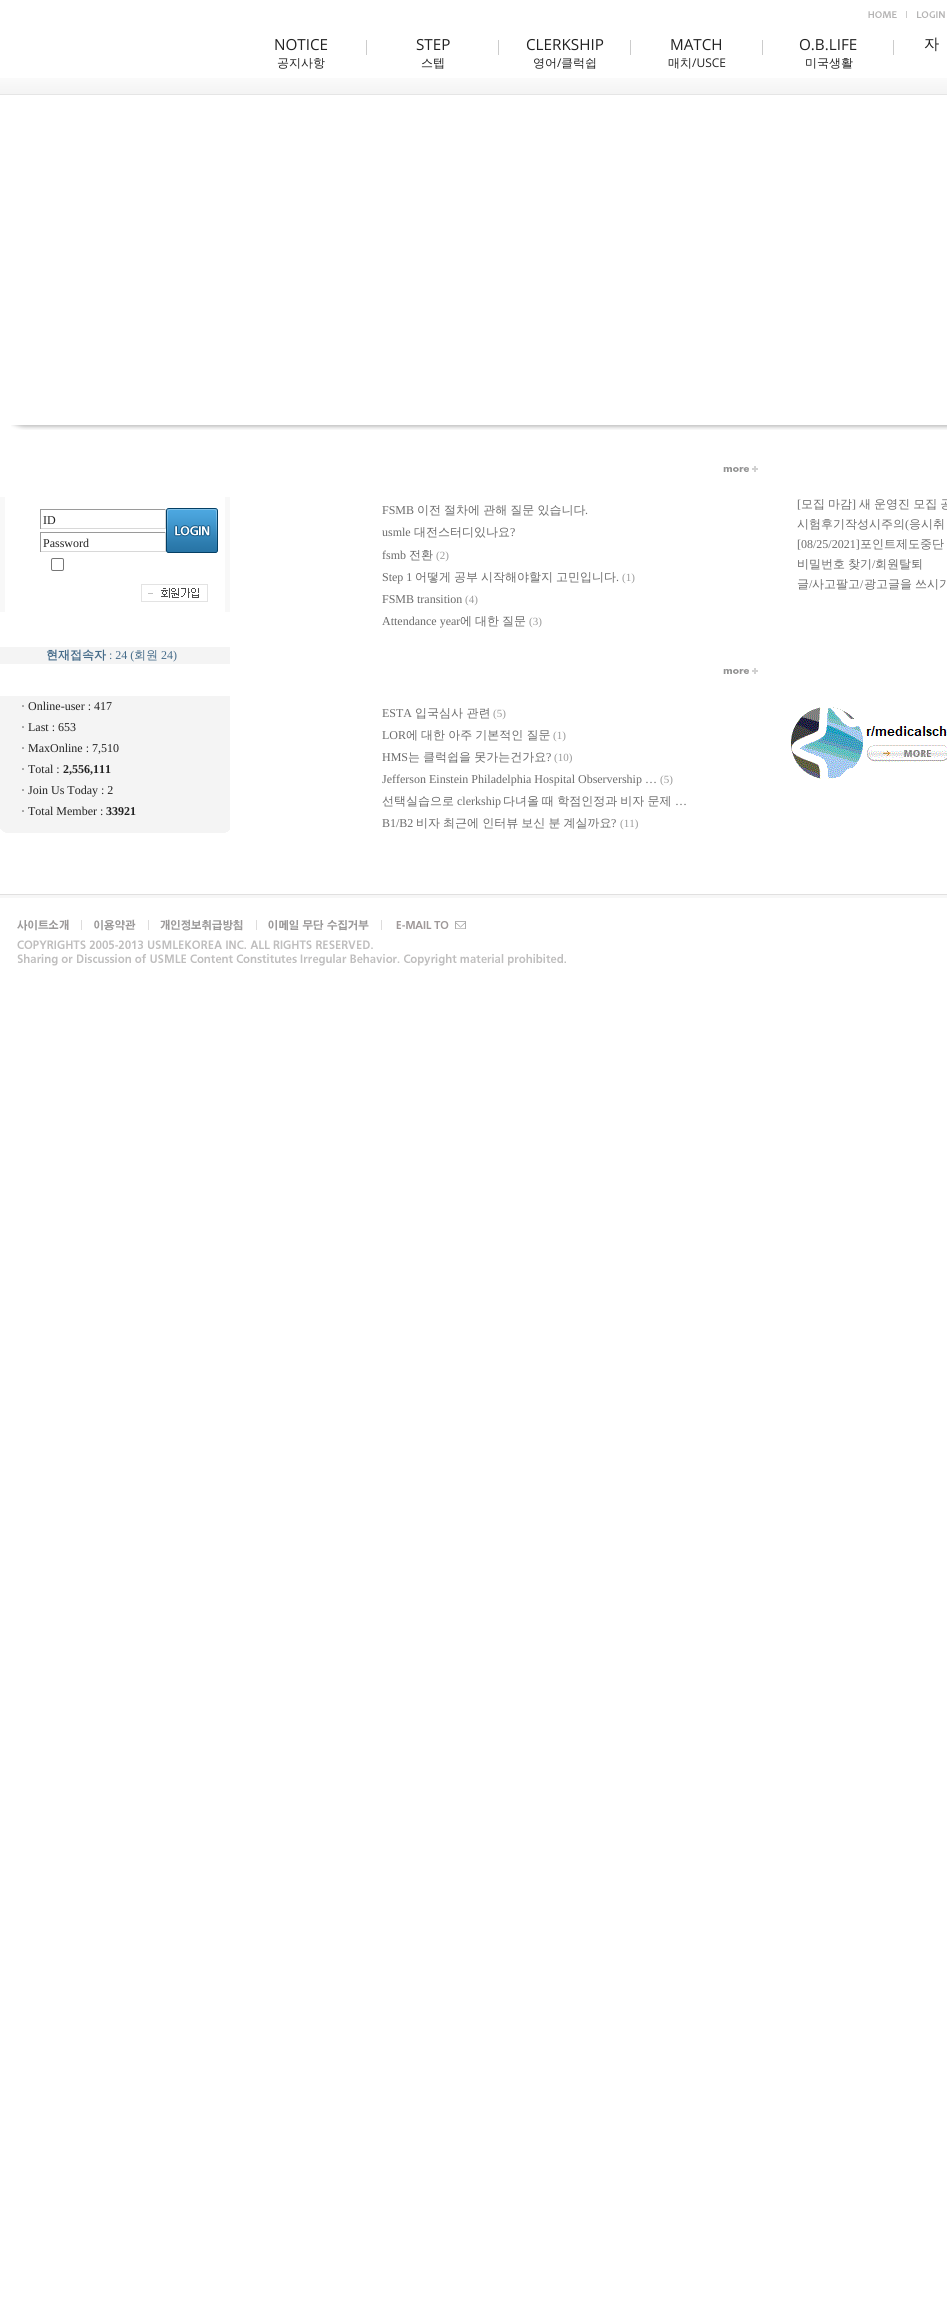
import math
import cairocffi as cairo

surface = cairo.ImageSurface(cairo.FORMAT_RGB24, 947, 2312)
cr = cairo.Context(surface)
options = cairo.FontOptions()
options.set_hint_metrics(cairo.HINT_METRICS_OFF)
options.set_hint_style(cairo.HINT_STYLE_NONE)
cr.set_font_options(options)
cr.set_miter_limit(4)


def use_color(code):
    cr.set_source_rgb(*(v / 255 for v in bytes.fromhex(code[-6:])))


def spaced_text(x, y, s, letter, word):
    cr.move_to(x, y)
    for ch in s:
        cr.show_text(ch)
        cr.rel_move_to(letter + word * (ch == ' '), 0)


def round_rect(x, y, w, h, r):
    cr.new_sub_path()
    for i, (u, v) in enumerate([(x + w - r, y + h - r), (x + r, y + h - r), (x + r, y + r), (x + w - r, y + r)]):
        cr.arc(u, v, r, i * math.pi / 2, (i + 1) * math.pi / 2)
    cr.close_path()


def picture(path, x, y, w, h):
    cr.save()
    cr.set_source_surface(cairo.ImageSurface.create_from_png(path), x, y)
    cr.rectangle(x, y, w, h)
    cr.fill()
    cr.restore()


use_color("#ffffff")
cr.paint()
picture("img1.png", 0, 78, 947, 17)
picture("img2.png", 868, 11, 29, 7)
use_color("#cccccc")
cr.rectangle(906, 11, 1, 7)
cr.fill()
picture("img3.png", 917, 11, 28, 7)
cr.select_font_face("Open Sans")
cr.set_font_size(15.25)
use_color("#222222")
cr.move_to(274, 50)
cr.show_text("NOTICE")
cr.select_font_face("WenQuanYi Zen Hei Medium")
cr.set_font_size(12)
cr.move_to(277, 67)
cr.show_text("공지사항")
use_color("#cccccc")
cr.rectangle(366, 40, 1, 15)
cr.fill()
cr.select_font_face("Open Sans")
cr.set_font_size(15.25)
use_color("#222222")
cr.move_to(416, 50)
cr.show_text("STEP")
cr.select_font_face("WenQuanYi Zen Hei Medium")
cr.set_font_size(12)
cr.move_to(421, 67)
cr.show_text("스텝")
use_color("#cccccc")
cr.rectangle(498, 40, 1, 15)
cr.fill()
cr.select_font_face("Open Sans")
cr.set_font_size(15.25)
use_color("#222222")
cr.move_to(526, 50)
cr.show_text("CLERKSHIP")
cr.select_font_face("WenQuanYi Zen Hei Medium")
cr.set_font_size(12)
cr.move_to(533, 67)
cr.show_text("영어")
cr.select_font_face("Open Sans")
cr.move_to(557, 67)
cr.show_text("/")
cr.select_font_face("WenQuanYi Zen Hei Medium")
cr.move_to(561, 67)
cr.show_text("클럭쉽")
use_color("#cccccc")
cr.rectangle(630, 40, 1, 15)
cr.fill()
cr.select_font_face("Open Sans")
cr.set_font_size(15.25)
use_color("#222222")
cr.move_to(670, 50)
cr.show_text("MATCH")
cr.select_font_face("WenQuanYi Zen Hei Medium")
cr.set_font_size(12)
cr.move_to(668, 67)
cr.show_text("매치")
cr.select_font_face("Open Sans")
cr.move_to(692, 67)
cr.show_text("/USCE")
use_color("#cccccc")
cr.rectangle(762, 40, 1, 15)
cr.fill()
cr.set_font_size(15.25)
use_color("#222222")
cr.move_to(799, 50)
cr.show_text("O.B.LIFE")
cr.select_font_face("WenQuanYi Zen Hei Medium")
cr.set_font_size(12)
cr.move_to(805, 67)
cr.show_text("미국생활")
use_color("#cccccc")
cr.rectangle(893, 40, 1, 15)
cr.fill()
cr.set_font_size(15.25)
use_color("#222222")
cr.move_to(924, 49)
cr.show_text("자")
picture("img4.png", 11, 425, 936, 5)
use_color("#f8f8f8")
cr.rectangle(0, 497, 5, 115)
cr.fill()
use_color("#9a9a9a")
cr.rectangle(40, 509, 126, 1)
cr.fill()
use_color("#d8d8d8")
cr.rectangle(165, 509, 1, 20)
cr.fill()
cr.rectangle(40, 528, 126, 1)
cr.fill()
use_color("#9a9a9a")
cr.rectangle(40, 509, 1, 20)
cr.fill()
cr.select_font_face("Liberation Serif")
cr.set_font_size(12)
use_color("#222222")
cr.move_to(43, 524)
cr.show_text("ID")
use_color("#9a9a9a")
cr.rectangle(40, 532, 126, 1)
cr.fill()
use_color("#d8d8d8")
cr.rectangle(165, 532, 1, 20)
cr.fill()
cr.rectangle(40, 551, 126, 1)
cr.fill()
use_color("#9a9a9a")
cr.rectangle(40, 532, 1, 20)
cr.fill()
use_color("#222222")
cr.move_to(43, 547)
cr.show_text("Password")
picture("img5.png", 166, 508, 52, 45)
round_rect(51.5, 558.5, 12, 12, 1.5)
use_color("#767676")
cr.set_line_width(1)
cr.stroke()
picture("img6.png", 141, 584, 67, 18)
use_color("#f8f8f8")
cr.rectangle(225, 497, 5, 115)
cr.fill()
use_color("#f4f4f4")
cr.rectangle(0, 647, 230, 17)
cr.fill()
cr.select_font_face("WenQuanYi Zen Hei", cairo.FONT_SLANT_NORMAL, cairo.FONT_WEIGHT_BOLD)
use_color("#466c8a")
cr.move_to(46, 659)
cr.show_text("현재접속자")
cr.select_font_face("Liberation Serif")
cr.move_to(109, 659)
cr.show_text(": 24 (")
cr.select_font_face("WenQuanYi Zen Hei Medium")
cr.move_to(134, 659)
cr.show_text("회원")
cr.select_font_face("Liberation Serif")
cr.move_to(161, 659)
cr.show_text("24)")
use_color("#f4f4f4")
cr.rectangle(0, 696, 230, 126)
cr.fill()
use_color("#222222")
cr.move_to(21, 710)
cr.show_text("· Online-user : 417")
cr.move_to(21, 731)
cr.show_text("· Last : 653")
cr.move_to(21, 752)
cr.show_text("· MaxOnline : 7,510")
cr.move_to(21, 773)
cr.show_text("· Total :")
cr.select_font_face("Liberation Serif", cairo.FONT_SLANT_NORMAL, cairo.FONT_WEIGHT_BOLD)
cr.move_to(63, 773)
cr.show_text("2,556,111")
cr.select_font_face("Liberation Serif")
cr.move_to(21, 794)
cr.show_text("· Join Us Today : 2")
cr.move_to(21, 815)
cr.show_text("· Total Member :")
cr.select_font_face("Liberation Serif", cairo.FONT_SLANT_NORMAL, cairo.FONT_WEIGHT_BOLD)
cr.move_to(106, 815)
cr.show_text("33921")
picture("img7.png", 0, 822, 230, 11)
picture("img8.png", 723, 466, 35, 6)
cr.select_font_face("Liberation Serif")
use_color("#6a6a6a")
cr.move_to(382, 514)
cr.show_text("FSMB")
cr.select_font_face("WenQuanYi Zen Hei Medium")
spaced_text(417, 514, "이전 절차에 관해 질문 있습니다", 0, -0.5)
cr.select_font_face("Liberation Serif")
cr.move_to(585, 514)
cr.show_text(".")
cr.move_to(382, 536)
cr.show_text("usmle")
cr.select_font_face("WenQuanYi Zen Hei Medium")
cr.move_to(414, 536)
cr.show_text("대전스터디있나요")
cr.select_font_face("Liberation Serif")
cr.move_to(510, 536)
cr.show_text("?")
cr.move_to(382, 559)
cr.show_text("fsmb")
cr.select_font_face("WenQuanYi Zen Hei Medium")
cr.move_to(409, 559)
cr.show_text("전환")
cr.select_font_face("Liberation Serif")
cr.set_font_size(11)
use_color("#9a9a9a")
cr.move_to(436, 559)
cr.show_text("(2)")
cr.set_font_size(12)
use_color("#6a6a6a")
cr.move_to(382, 581)
cr.show_text("Step 1")
cr.select_font_face("WenQuanYi Zen Hei Medium")
cr.move_to(415, 581)
cr.show_text("어떻게")
cr.move_to(454, 581)
cr.show_text("공부")
cr.move_to(481, 581)
cr.show_text("시작해야할지")
cr.move_to(556, 581)
cr.show_text("고민입니다")
cr.select_font_face("Liberation Serif")
cr.move_to(616, 581)
cr.show_text(".")
cr.set_font_size(11)
use_color("#9a9a9a")
cr.move_to(622, 581)
cr.show_text("(1)")
cr.set_font_size(12)
use_color("#6a6a6a")
cr.move_to(382, 603)
cr.show_text("FSMB transition")
cr.set_font_size(11)
use_color("#9a9a9a")
cr.move_to(465, 603)
cr.show_text("(4)")
cr.set_font_size(12)
use_color("#6a6a6a")
cr.move_to(382, 625)
cr.show_text("Attendance year")
cr.select_font_face("WenQuanYi Zen Hei Medium")
cr.move_to(460, 625)
cr.show_text("에")
cr.move_to(475, 625)
cr.show_text("대한")
cr.move_to(502, 625)
cr.show_text("질문")
cr.select_font_face("Liberation Serif")
cr.set_font_size(11)
use_color("#9a9a9a")
cr.move_to(529, 625)
cr.show_text("(3)")
picture("img8.png", 723, 668, 35, 6)
cr.set_font_size(12)
use_color("#6a6a6a")
cr.move_to(382, 717)
cr.show_text("ESTA")
cr.select_font_face("WenQuanYi Zen Hei Medium")
cr.move_to(415, 717)
cr.show_text("입국심사 관련")
cr.select_font_face("Liberation Serif")
cr.set_font_size(11)
use_color("#9a9a9a")
cr.move_to(493, 717)
cr.show_text("(5)")
cr.set_font_size(12)
use_color("#6a6a6a")
cr.move_to(382, 739)
cr.show_text("LOR")
cr.select_font_face("WenQuanYi Zen Hei Medium")
spaced_text(406, 739, "에 대한 아주 기본적인 질문", 0, -0.5)
cr.select_font_face("Liberation Serif")
cr.set_font_size(11)
use_color("#9a9a9a")
cr.move_to(553, 739)
cr.show_text("(1)")
cr.set_font_size(12)
use_color("#6a6a6a")
cr.move_to(382, 761)
cr.show_text("HMS")
cr.select_font_face("WenQuanYi Zen Hei Medium")
spaced_text(408, 761, "는 클럭쉽을 못가는건가요", 0, -0.5)
cr.select_font_face("Liberation Serif")
cr.move_to(546, 761)
cr.show_text("?")
cr.set_font_size(11)
use_color("#9a9a9a")
cr.move_to(554, 761)
cr.show_text("(10)")
cr.set_font_size(12)
use_color("#6a6a6a")
cr.move_to(382, 783)
cr.show_text("Jefferson Einstein Philadelphia Hospital Observership …")
cr.set_font_size(11)
use_color("#9a9a9a")
cr.move_to(660, 783)
cr.show_text("(5)")
cr.select_font_face("WenQuanYi Zen Hei Medium")
cr.set_font_size(12)
use_color("#6a6a6a")
cr.move_to(382, 805)
cr.show_text("선택실습으로")
cr.select_font_face("Liberation Serif")
cr.move_to(457, 805)
cr.show_text("clerkship")
cr.select_font_face("WenQuanYi Zen Hei Medium")
spaced_text(503, 805, "다녀올 때 학점인정과 비자 문제", 0, -0.5)
cr.select_font_face("Liberation Serif")
cr.move_to(675, 805)
cr.show_text("…")
cr.move_to(382, 827)
cr.show_text("B1/B2")
cr.select_font_face("WenQuanYi Zen Hei Medium")
spaced_text(416, 827, "비자 최근에 인터뷰 보신 분 계실까요", 0, -0.5)
cr.select_font_face("Liberation Serif")
cr.move_to(611, 827)
cr.show_text("?")
cr.set_font_size(11)
use_color("#9a9a9a")
cr.move_to(620, 827)
cr.show_text("(11)")
cr.set_font_size(12)
use_color("#6a6a6a")
cr.move_to(797, 508)
cr.show_text("[")
cr.select_font_face("WenQuanYi Zen Hei Medium")
spaced_text(801, 508, "모집 마감", 0, -0.5)
cr.select_font_face("Liberation Serif")
cr.move_to(852, 508)
cr.show_text("]")
cr.select_font_face("WenQuanYi Zen Hei Medium")
spaced_text(859, 508, "새 운영진 모집 공", 0, -0.5)
cr.move_to(797, 528)
cr.show_text("시험후기작성시주의")
cr.select_font_face("Liberation Serif")
cr.move_to(905, 528)
cr.show_text("(")
cr.select_font_face("WenQuanYi Zen Hei Medium")
cr.move_to(909, 528)
cr.show_text("응시취")
cr.select_font_face("Liberation Serif")
cr.move_to(797, 548)
cr.show_text("[08/25/2021]")
cr.select_font_face("WenQuanYi Zen Hei Medium")
cr.move_to(860, 548)
cr.show_text("포인트제도중단")
spaced_text(797, 568, "비밀번호 찾기", 0, -0.5)
cr.select_font_face("Liberation Serif")
cr.move_to(872, 568)
cr.show_text("/")
cr.select_font_face("WenQuanYi Zen Hei Medium")
cr.move_to(875, 568)
cr.show_text("회원탈퇴")
cr.move_to(797, 588)
cr.show_text("글")
cr.select_font_face("Liberation Serif")
cr.move_to(809, 588)
cr.show_text("/")
cr.select_font_face("WenQuanYi Zen Hei Medium")
cr.move_to(812, 588)
cr.show_text("사고팔고")
cr.select_font_face("Liberation Serif")
cr.move_to(860, 588)
cr.show_text("/")
cr.select_font_face("WenQuanYi Zen Hei Medium")
spaced_text(864, 588, "광고글을 쓰시기", 0, -0.5)
picture("img9.png", 791, 707, 156, 72)
picture("img10.png", 0, 894, 947, 72)
surface.write_to_png("result.png")
